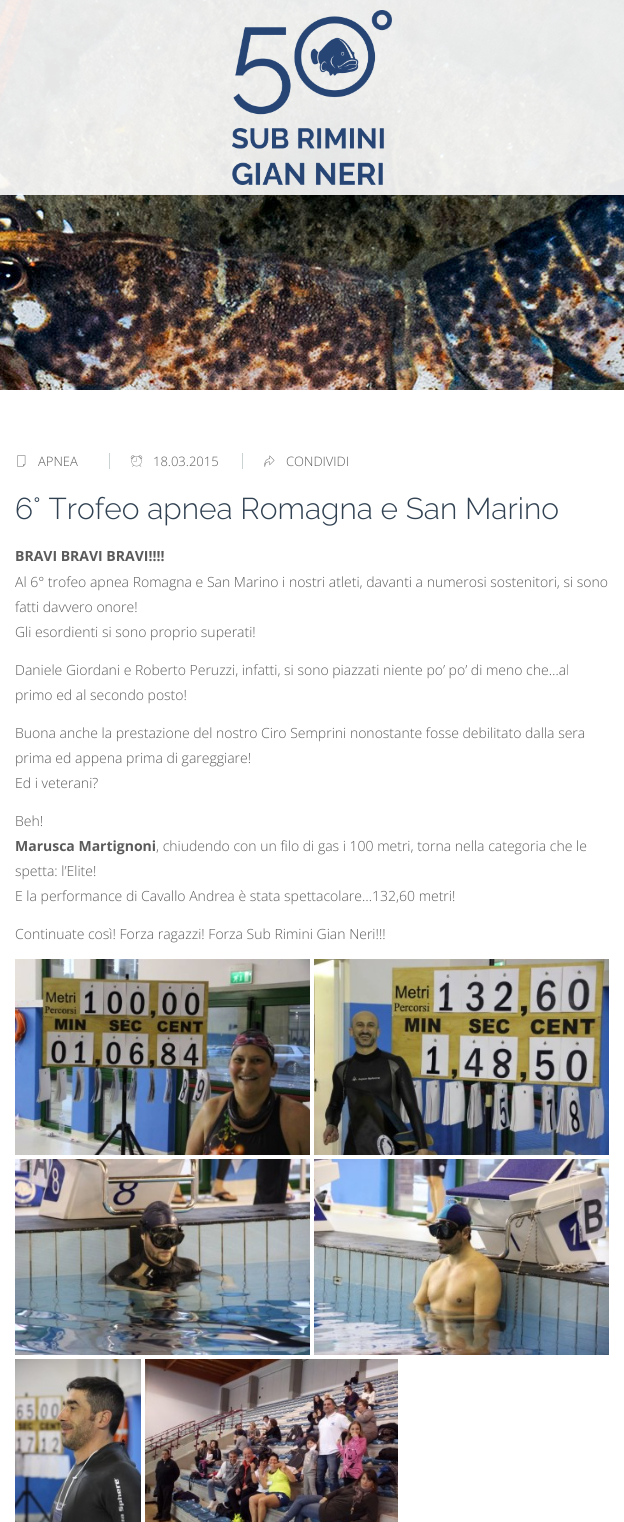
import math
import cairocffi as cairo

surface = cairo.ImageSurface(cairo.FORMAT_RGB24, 624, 1522)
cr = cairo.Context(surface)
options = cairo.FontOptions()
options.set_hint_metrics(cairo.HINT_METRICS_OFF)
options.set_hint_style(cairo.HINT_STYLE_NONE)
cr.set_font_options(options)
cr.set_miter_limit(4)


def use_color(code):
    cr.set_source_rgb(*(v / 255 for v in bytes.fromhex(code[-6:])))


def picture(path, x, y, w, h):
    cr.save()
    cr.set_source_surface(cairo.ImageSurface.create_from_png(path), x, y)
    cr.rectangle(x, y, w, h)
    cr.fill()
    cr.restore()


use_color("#ffffff")
cr.paint()
picture("img1.png", 0, 0, 624, 390)
cr.set_source_rgba(1, 1, 1, 0.9)
cr.rectangle(0, 0, 624, 195)
cr.fill()
picture("img2.png", 232, 10, 160, 175)
picture("img3.png", 17, 455, 9, 12)
cr.select_font_face("Open Sans Light")
cr.set_font_size(13)
use_color("#5b5b5b")
cr.move_to(38, 466)
cr.show_text("APNEA")
use_color("#cad2d3")
cr.rectangle(109, 453, 1, 16)
cr.fill()
picture("img4.png", 130, 455, 13, 12)
use_color("#5b5b5b")
cr.move_to(153, 466)
cr.show_text("18.03.2015")
use_color("#cad2d3")
cr.rectangle(242, 453, 1, 16)
cr.fill()
picture("img5.png", 264, 455, 11, 12)
use_color("#5b5b5b")
cr.move_to(286, 466)
cr.show_text("CONDIVIDI")
cr.select_font_face("Raleway Thin")
cr.set_font_size(30)
use_color("#304152")
cr.move_to(15, 519)
cr.show_text("6° Trofeo apnea Romagna e San Marino")
cr.select_font_face("Open Sans", cairo.FONT_SLANT_NORMAL, cairo.FONT_WEIGHT_BOLD)
cr.set_font_size(14)
use_color("#5b5b5b")
cr.move_to(15, 561)
cr.show_text("BRAVI BRAVI BRAVI!!!!")
cr.select_font_face("Open Sans Light")
cr.move_to(15, 587)
cr.show_text("Al 6° trofeo apnea Romagna e San Marino i nostri atleti, davanti a numerosi sostenitori, si sono")
cr.move_to(15, 612)
cr.show_text("fatti davvero onore!")
cr.move_to(15, 637)
cr.show_text("Gli esordienti si sono proprio superati!")
cr.move_to(15, 675)
cr.show_text("Daniele Giordani e Roberto Peruzzi, infatti, si sono piazzati niente po’ po’ di meno che…al")
cr.move_to(15, 700)
cr.show_text("primo ed al secondo posto!")
cr.move_to(15, 738)
cr.show_text("Buona anche la prestazione del nostro Ciro Semprini nonostante fosse debilitato dalla sera")
cr.move_to(15, 763)
cr.show_text("prima ed appena prima di gareggiare!")
cr.move_to(15, 788)
cr.show_text("Ed i veterani?")
cr.move_to(15, 826)
cr.show_text("Beh!")
cr.select_font_face("Open Sans", cairo.FONT_SLANT_NORMAL, cairo.FONT_WEIGHT_BOLD)
cr.move_to(15, 851)
cr.show_text("Marusca Martignoni")
cr.select_font_face("Open Sans Light")
cr.move_to(156, 851)
cr.show_text(", chiudendo con un filo di gas i 100 metri, torna nella categoria che le")
cr.move_to(15, 876)
cr.show_text("spetta: l’Elite!")
cr.move_to(15, 901)
cr.show_text("E la performance di Cavallo Andrea è stata spettacolare…132,60 metri!")
cr.move_to(15, 939)
cr.show_text("Continuate così! Forza ragazzi! Forza Sub Rimini Gian Neri!!!")
picture("img6.png", 15, 959, 295, 196)
picture("img7.png", 314, 959, 295, 196)
picture("img8.png", 15, 1159, 295, 196)
picture("img9.png", 314, 1159, 295, 196)
picture("img10.png", 15, 1359, 126, 163)
picture("img11.png", 145, 1359, 253, 163)
surface.write_to_png("result.png")
